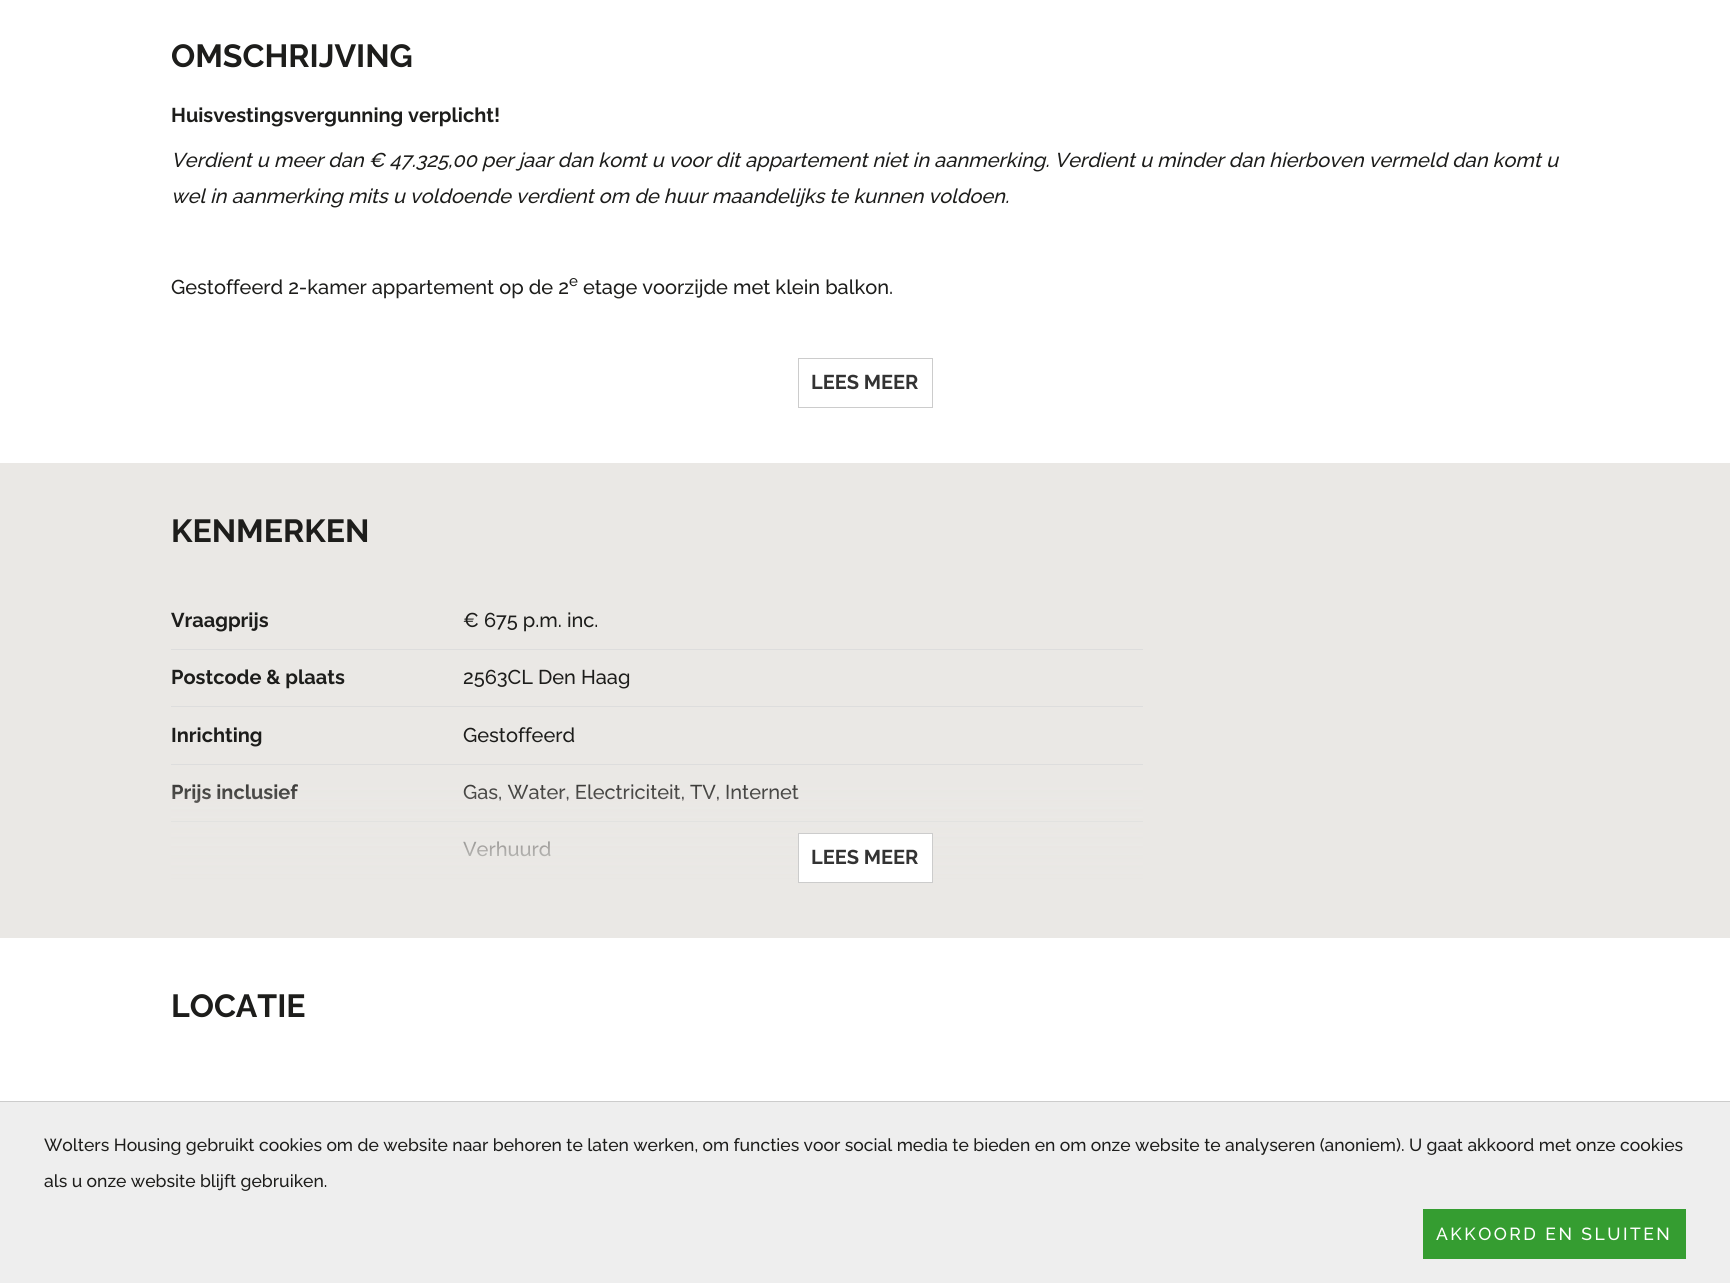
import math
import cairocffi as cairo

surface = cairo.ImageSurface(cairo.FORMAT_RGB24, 1730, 1283)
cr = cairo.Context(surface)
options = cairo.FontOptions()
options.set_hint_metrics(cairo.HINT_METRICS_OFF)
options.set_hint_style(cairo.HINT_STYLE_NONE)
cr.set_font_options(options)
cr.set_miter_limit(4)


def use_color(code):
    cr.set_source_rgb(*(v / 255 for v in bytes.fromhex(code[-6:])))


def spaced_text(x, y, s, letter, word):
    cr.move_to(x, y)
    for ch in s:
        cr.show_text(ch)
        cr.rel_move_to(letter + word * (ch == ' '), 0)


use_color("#ffffff")
cr.paint()
cr.select_font_face("Raleway", cairo.FONT_SLANT_NORMAL, cairo.FONT_WEIGHT_BOLD)
cr.set_font_size(32)
use_color("#1d1d1b")
cr.move_to(171, 67)
cr.show_text("OMSCHRIJVING")
cr.set_font_size(20)
cr.move_to(171, 122)
cr.show_text("Huisvestingsvergunning verplicht!")
cr.select_font_face("Raleway Medium", cairo.FONT_SLANT_ITALIC)
cr.move_to(171, 167)
cr.show_text("Verdient u meer dan € 47.325,00 per jaar dan komt u voor dit appartement niet in aanmerking. Verdient u minder dan hierboven vermeld dan komt u")
cr.move_to(171, 203)
cr.show_text("wel in aanmerking mits u voldoende verdient om de huur maandelijks te kunnen voldoen.")
cr.select_font_face("Raleway Medium")
cr.move_to(171, 294)
cr.show_text("Gestoffeerd 2-kamer appartement op de 2")
cr.set_font_size(15)
cr.move_to(569, 286)
cr.show_text("e")
cr.set_font_size(20)
cr.move_to(583, 294)
cr.show_text("etage voorzijde met klein balkon.")
gradient = cairo.LinearGradient(865, 292, 865, 413)
gradient.add_color_stop_rgba(0, 1, 1, 1, 0)
gradient.add_color_stop_rgba(1, 1, 1, 1, 1)
cr.set_source(gradient)
cr.rectangle(384, 295, 318, 4)
cr.fill()
cr.rectangle(798.5, 358.5, 134, 49)
use_color("#cccccc")
cr.set_line_width(1)
cr.stroke()
cr.select_font_face("Raleway", cairo.FONT_SLANT_NORMAL, cairo.FONT_WEIGHT_BOLD)
use_color("#333333")
cr.move_to(811, 389)
cr.show_text("LEES MEER")
use_color("#eae8e5")
cr.rectangle(0, 463, 1730, 475)
cr.fill()
cr.set_font_size(32)
use_color("#1d1d1b")
cr.move_to(171, 542)
cr.show_text("KENMERKEN")
use_color("#dddddd")
cr.rectangle(171, 649, 972, 1)
cr.fill()
cr.set_font_size(20)
use_color("#1d1d1b")
cr.move_to(171, 627)
cr.show_text("Vraagprijs")
cr.select_font_face("Raleway Medium")
cr.move_to(463, 627)
cr.show_text("€ 675 p.m. inc.")
use_color("#dddddd")
cr.rectangle(171, 706, 972, 1)
cr.fill()
cr.select_font_face("Raleway", cairo.FONT_SLANT_NORMAL, cairo.FONT_WEIGHT_BOLD)
use_color("#1d1d1b")
cr.move_to(171, 684)
cr.show_text("Postcode & plaats")
cr.select_font_face("Raleway Medium")
cr.move_to(463, 684)
cr.show_text("2563CL Den Haag")
use_color("#dddddd")
cr.rectangle(171, 764, 972, 1)
cr.fill()
cr.select_font_face("Raleway", cairo.FONT_SLANT_NORMAL, cairo.FONT_WEIGHT_BOLD)
use_color("#1d1d1b")
cr.move_to(171, 742)
cr.show_text("Inrichting")
cr.select_font_face("Raleway Medium")
cr.move_to(463, 742)
cr.show_text("Gestoffeerd")
use_color("#dddddd")
cr.rectangle(171, 821, 972, 1)
cr.fill()
cr.select_font_face("Raleway", cairo.FONT_SLANT_NORMAL, cairo.FONT_WEIGHT_BOLD)
use_color("#1d1d1b")
cr.move_to(171, 799)
cr.show_text("Prijs inclusief")
cr.select_font_face("Raleway Medium")
cr.move_to(463, 799)
cr.show_text("Gas, Water, Electriciteit, TV, Internet")
cr.move_to(463, 856)
cr.show_text("Verhuurd")
use_color("#dddddd")
cr.rectangle(171, 878, 972, 1)
cr.fill()
gradient = cairo.LinearGradient(865, 767, 865, 888)
gradient.add_color_stop_rgba(0, 0.918, 0.91, 0.898, 0)
gradient.add_color_stop_rgba(1, 0.918, 0.91, 0.898, 1)
cr.set_source(gradient)
cr.rectangle(171, 784, 972, 95)
cr.fill()
use_color("#ffffff")
cr.rectangle(798.5, 833.5, 134, 49)
cr.fill_preserve()
use_color("#cccccc")
cr.stroke()
cr.select_font_face("Raleway", cairo.FONT_SLANT_NORMAL, cairo.FONT_WEIGHT_BOLD)
use_color("#333333")
cr.move_to(811, 864)
cr.show_text("LEES MEER")
cr.set_font_size(32)
use_color("#1d1d1b")
cr.move_to(171, 1017)
cr.show_text("LOCATIE")
use_color("#eeeeee")
cr.rectangle(0, 1102, 1730, 181)
cr.fill()
use_color("#cccccc")
cr.rectangle(0, 1101, 1730, 1)
cr.fill()
cr.select_font_face("Raleway Medium")
cr.set_font_size(17.5)
use_color("#1d1d1b")
cr.move_to(44, 1151)
cr.show_text("Wolters Housing gebruikt cookies om de website naar behoren te laten werken, om functies voor social media te bieden en om onze website te analyseren (anoniem). U gaat akkoord met onze cookies")
cr.move_to(44, 1187)
cr.show_text("als u onze website blijft gebruiken.")
use_color("#359d31")
cr.rectangle(1423, 1209, 263, 50)
cr.fill()
use_color("#ffffff")
spaced_text(1436, 1240, "AKKOORD EN SLUITEN", 2.5, 0)
surface.write_to_png("result.png")
